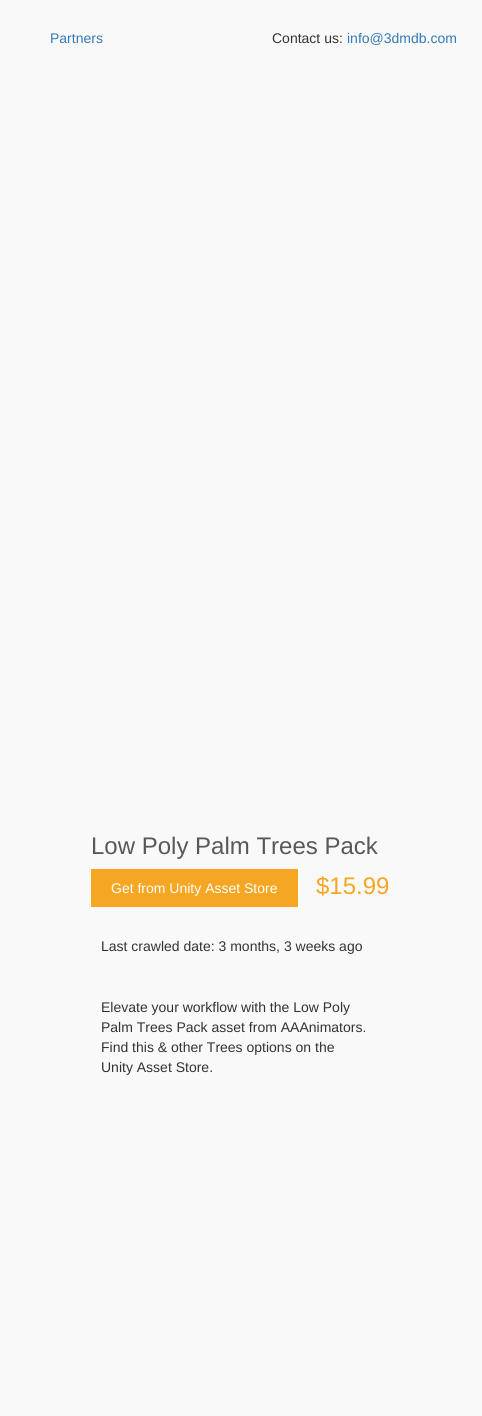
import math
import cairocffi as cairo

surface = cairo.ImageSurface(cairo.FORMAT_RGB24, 482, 1416)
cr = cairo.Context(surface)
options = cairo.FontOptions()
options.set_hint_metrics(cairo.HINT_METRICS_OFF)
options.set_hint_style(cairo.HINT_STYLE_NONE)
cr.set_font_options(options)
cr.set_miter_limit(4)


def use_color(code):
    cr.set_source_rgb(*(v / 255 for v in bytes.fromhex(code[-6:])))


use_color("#f9f9f9")
cr.paint()
cr.select_font_face("Liberation Sans")
cr.set_font_size(14)
use_color("#337ab7")
cr.move_to(50, 43)
cr.show_text("Partners")
use_color("#333333")
cr.move_to(272, 43)
cr.show_text("Contact us:")
use_color("#337ab7")
cr.move_to(347, 43)
cr.show_text("info@3dmdb.com")
cr.set_font_size(24)
use_color("#585858")
cr.move_to(91, 854)
cr.show_text("Low Poly Palm Trees Pack")
use_color("#f5a623")
cr.rectangle(91, 869, 207, 38)
cr.fill()
cr.set_font_size(14)
use_color("#ffffff")
cr.move_to(111, 893)
cr.show_text("Get from Unity Asset Store")
cr.set_font_size(24)
use_color("#f5a623")
cr.move_to(316, 894)
cr.show_text("$15.99")
cr.set_font_size(14)
use_color("#333333")
cr.move_to(101, 951)
cr.show_text("Last crawled date: 3 months, 3 weeks ago")
cr.move_to(101, 1012)
cr.show_text("Elevate your workflow with the Low Poly")
cr.move_to(101, 1032)
cr.show_text("Palm Trees Pack asset from AAAnimators.")
cr.move_to(101, 1052)
cr.show_text("Find this & other Trees options on the")
cr.move_to(101, 1072)
cr.show_text("Unity Asset Store.")
surface.write_to_png("result.png")
